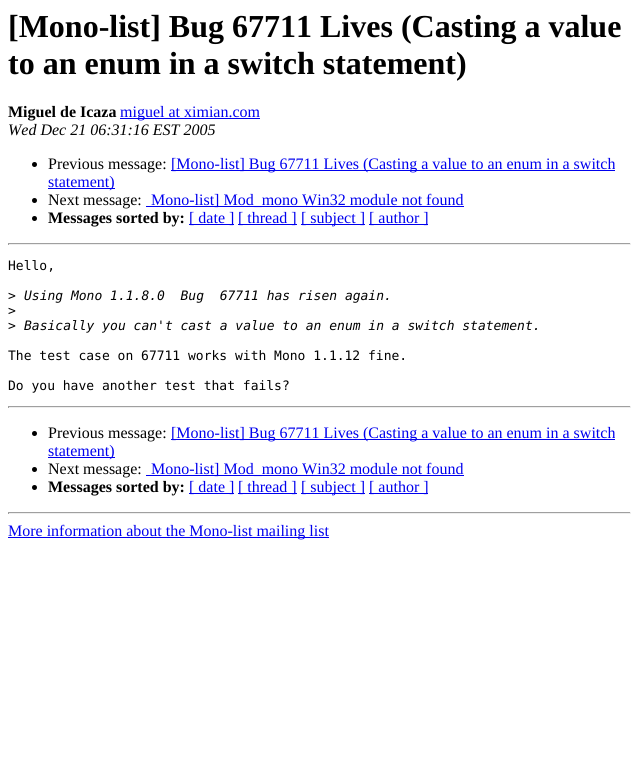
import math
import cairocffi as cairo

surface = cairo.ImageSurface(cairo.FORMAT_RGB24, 639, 781)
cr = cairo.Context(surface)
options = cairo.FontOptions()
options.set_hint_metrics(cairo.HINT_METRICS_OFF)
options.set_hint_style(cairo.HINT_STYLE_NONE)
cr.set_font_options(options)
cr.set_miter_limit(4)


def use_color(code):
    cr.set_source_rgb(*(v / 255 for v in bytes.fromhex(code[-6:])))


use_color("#ffffff")
cr.paint()
cr.select_font_face("Liberation Serif", cairo.FONT_SLANT_NORMAL, cairo.FONT_WEIGHT_BOLD)
cr.set_font_size(32)
use_color("#000000")
cr.move_to(8, 37)
cr.show_text("[Mono-list] Bug 67711 Lives (Casting a value")
cr.move_to(8, 74)
cr.show_text("to an enum in a switch statement)")
cr.set_font_size(16)
cr.move_to(8, 117)
cr.show_text("Miguel de Icaza")
use_color("#0000ee")
cr.rectangle(120, 118, 140, 1)
cr.fill()
cr.select_font_face("Liberation Serif")
cr.move_to(120, 117)
cr.show_text("miguel at ximian.com")
cr.select_font_face("Liberation Serif", cairo.FONT_SLANT_ITALIC)
use_color("#000000")
cr.move_to(8, 135)
cr.show_text("Wed Dec 21 06:31:16 EST 2005")
cr.new_path()
cr.arc(34.5, 164.5, 2.5, 0, 2 * math.pi)
cr.fill()
cr.select_font_face("Liberation Serif")
cr.move_to(48, 169)
cr.show_text("Previous message:")
use_color("#0000ee")
cr.rectangle(171, 170, 444, 1)
cr.fill()
cr.move_to(171, 169)
cr.show_text("[Mono-list] Bug 67711 Lives (Casting a value to an enum in a switch")
cr.rectangle(48, 188, 67, 1)
cr.fill()
cr.move_to(48, 187)
cr.show_text("statement)")
use_color("#000000")
cr.new_path()
cr.arc(34.5, 200.5, 2.5, 0, 2 * math.pi)
cr.fill()
cr.move_to(48, 205)
cr.show_text("Next message:")
use_color("#0000ee")
cr.rectangle(146, 206, 318, 1)
cr.fill()
cr.move_to(151, 205)
cr.show_text("Mono-list] Mod_mono Win32 module not found")
use_color("#000000")
cr.new_path()
cr.arc(34.5, 218.5, 2.5, 0, 2 * math.pi)
cr.fill()
cr.select_font_face("Liberation Serif", cairo.FONT_SLANT_NORMAL, cairo.FONT_WEIGHT_BOLD)
cr.move_to(48, 223)
cr.show_text("Messages sorted by:")
use_color("#0000ee")
cr.rectangle(189, 224, 45, 1)
cr.fill()
cr.select_font_face("Liberation Serif")
cr.move_to(189, 223)
cr.show_text("[ date ]")
cr.rectangle(238, 224, 59, 1)
cr.fill()
cr.move_to(238, 223)
cr.show_text("[ thread ]")
cr.rectangle(301, 224, 64, 1)
cr.fill()
cr.move_to(301, 223)
cr.show_text("[ subject ]")
cr.rectangle(369, 224, 59, 1)
cr.fill()
cr.move_to(369, 223)
cr.show_text("[ author ]")
use_color("#9f9f9f")
cr.rectangle(8, 243, 623, 1)
cr.fill()
use_color("#eeeeee")
cr.rectangle(630, 243, 1, 2)
cr.fill()
cr.rectangle(8, 244, 623, 1)
cr.fill()
use_color("#9f9f9f")
cr.rectangle(8, 243, 1, 2)
cr.fill()
cr.select_font_face("DejaVu Sans Mono")
cr.set_font_size(13)
use_color("#000000")
cr.move_to(8, 270)
cr.show_text("Hello,")
cr.move_to(8, 300)
cr.show_text(">")
cr.select_font_face("DejaVu Sans Mono", cairo.FONT_SLANT_ITALIC)
cr.move_to(24, 300)
cr.show_text("Using Mono 1.1.8.0  Bug  67711 has risen again.")
cr.select_font_face("DejaVu Sans Mono")
cr.move_to(8, 315)
cr.show_text(">")
cr.move_to(8, 330)
cr.show_text(">")
cr.select_font_face("DejaVu Sans Mono", cairo.FONT_SLANT_ITALIC)
cr.move_to(24, 330)
cr.show_text("Basically you can't cast a value to an enum in a switch statement.")
cr.select_font_face("DejaVu Sans Mono")
cr.move_to(8, 360)
cr.show_text("The test case on 67711 works with Mono 1.1.12 fine.")
cr.move_to(8, 390)
cr.show_text("Do you have another test that fails?")
use_color("#9f9f9f")
cr.rectangle(8, 406, 623, 1)
cr.fill()
use_color("#eeeeee")
cr.rectangle(630, 406, 1, 2)
cr.fill()
cr.rectangle(8, 407, 623, 1)
cr.fill()
use_color("#9f9f9f")
cr.rectangle(8, 406, 1, 2)
cr.fill()
use_color("#000000")
cr.arc(34.5, 433.5, 2.5, 0, 2 * math.pi)
cr.fill()
cr.select_font_face("Liberation Serif")
cr.set_font_size(16)
cr.move_to(48, 438)
cr.show_text("Previous message:")
use_color("#0000ee")
cr.rectangle(171, 439, 444, 1)
cr.fill()
cr.move_to(171, 438)
cr.show_text("[Mono-list] Bug 67711 Lives (Casting a value to an enum in a switch")
cr.rectangle(48, 457, 67, 1)
cr.fill()
cr.move_to(48, 456)
cr.show_text("statement)")
use_color("#000000")
cr.new_path()
cr.arc(34.5, 469.5, 2.5, 0, 2 * math.pi)
cr.fill()
cr.move_to(48, 474)
cr.show_text("Next message:")
use_color("#0000ee")
cr.rectangle(146, 475, 318, 1)
cr.fill()
cr.move_to(151, 474)
cr.show_text("Mono-list] Mod_mono Win32 module not found")
use_color("#000000")
cr.new_path()
cr.arc(34.5, 487.5, 2.5, 0, 2 * math.pi)
cr.fill()
cr.select_font_face("Liberation Serif", cairo.FONT_SLANT_NORMAL, cairo.FONT_WEIGHT_BOLD)
cr.move_to(48, 492)
cr.show_text("Messages sorted by:")
use_color("#0000ee")
cr.rectangle(189, 493, 45, 1)
cr.fill()
cr.select_font_face("Liberation Serif")
cr.move_to(189, 492)
cr.show_text("[ date ]")
cr.rectangle(238, 493, 59, 1)
cr.fill()
cr.move_to(238, 492)
cr.show_text("[ thread ]")
cr.rectangle(301, 493, 64, 1)
cr.fill()
cr.move_to(301, 492)
cr.show_text("[ subject ]")
cr.rectangle(369, 493, 59, 1)
cr.fill()
cr.move_to(369, 492)
cr.show_text("[ author ]")
use_color("#9f9f9f")
cr.rectangle(8, 512, 623, 1)
cr.fill()
use_color("#eeeeee")
cr.rectangle(630, 512, 1, 2)
cr.fill()
cr.rectangle(8, 513, 623, 1)
cr.fill()
use_color("#9f9f9f")
cr.rectangle(8, 512, 1, 2)
cr.fill()
use_color("#0000ee")
cr.rectangle(8, 537, 321, 1)
cr.fill()
cr.move_to(8, 536)
cr.show_text("More information about the Mono-list mailing list")
surface.write_to_png("result.png")
